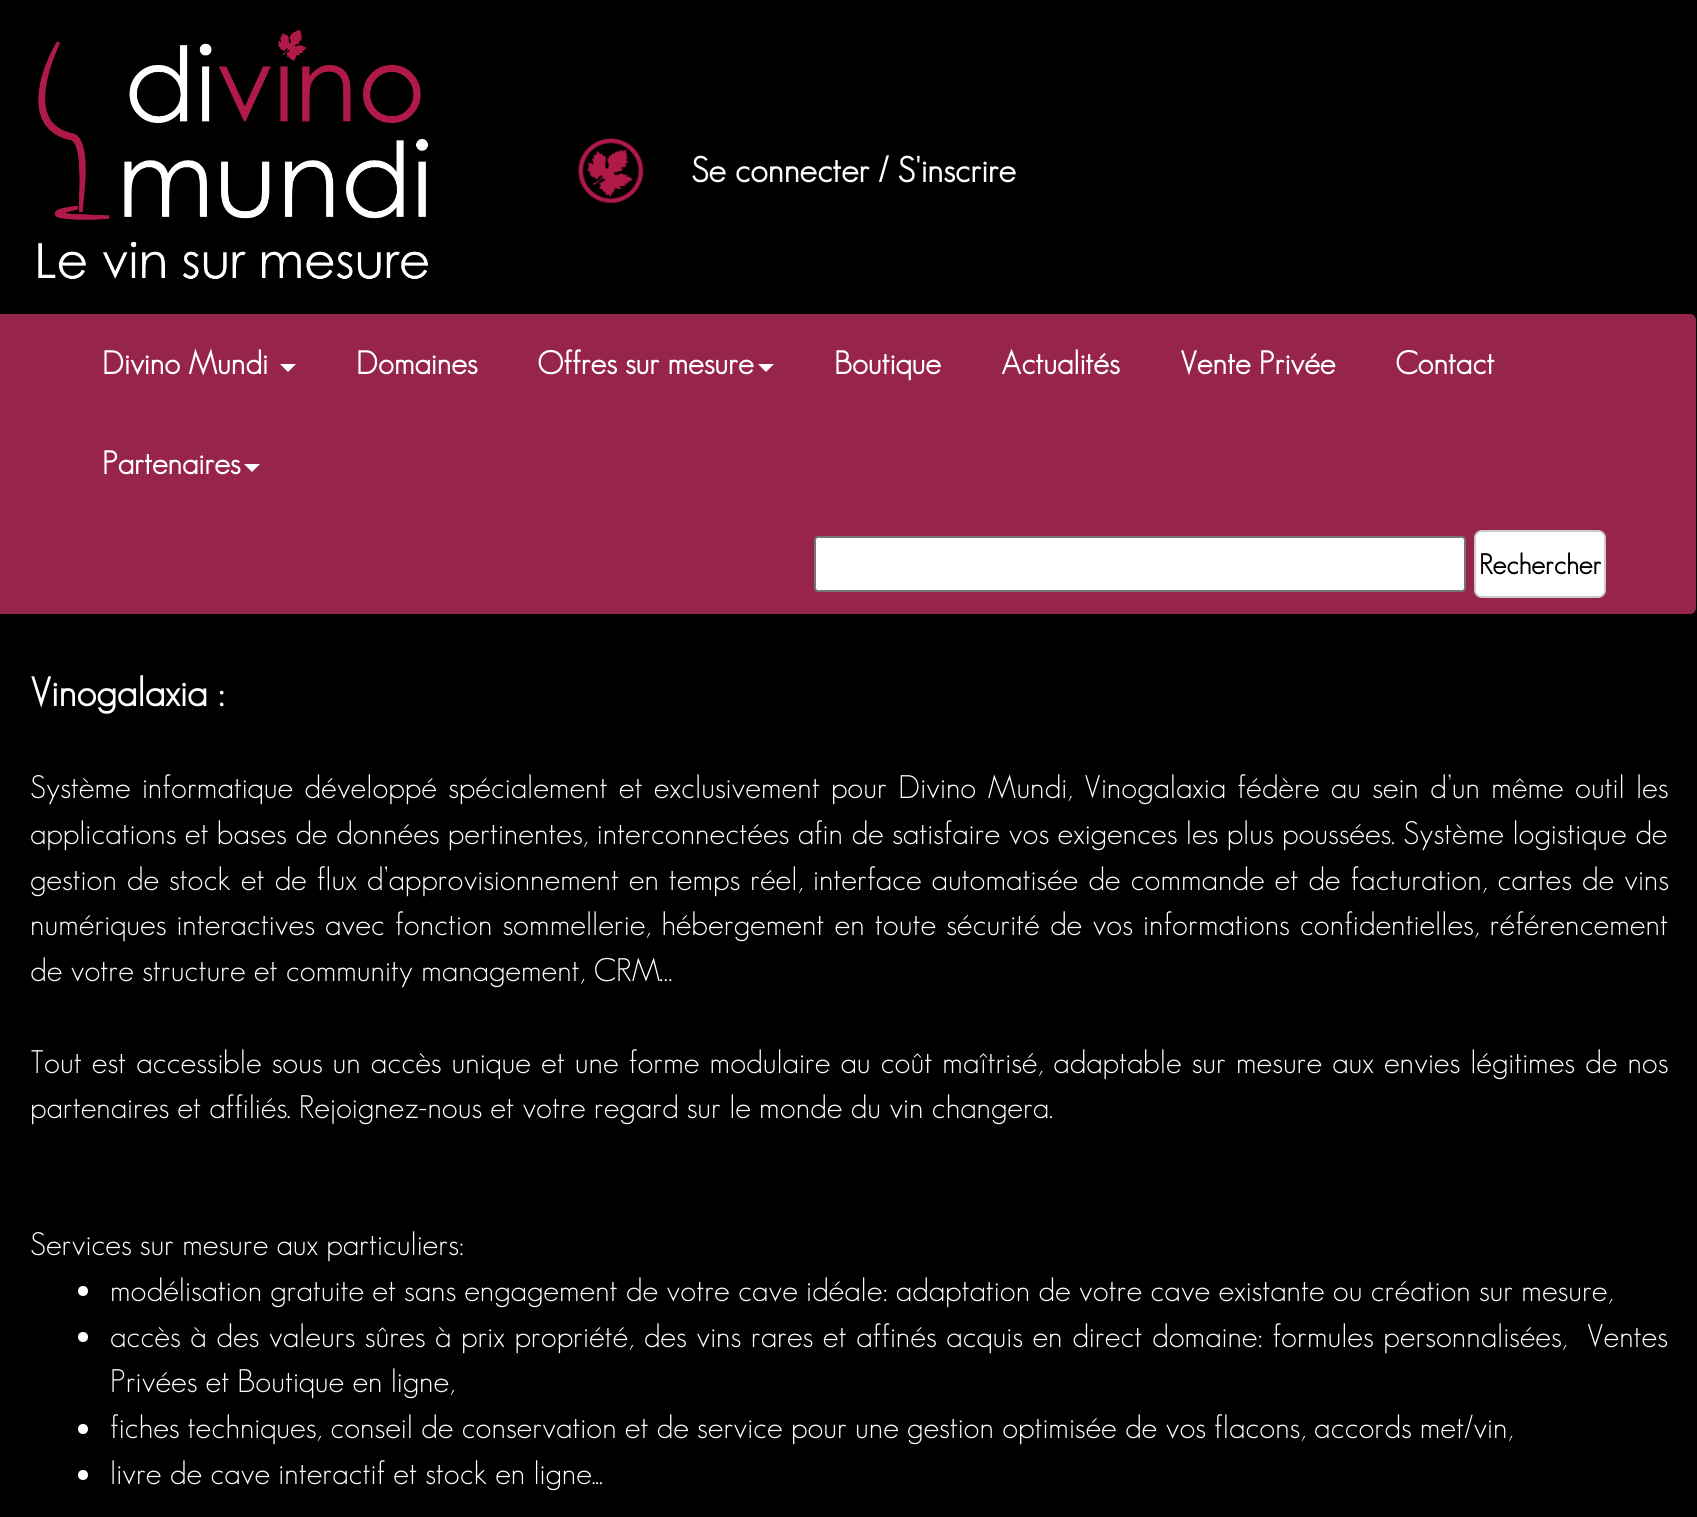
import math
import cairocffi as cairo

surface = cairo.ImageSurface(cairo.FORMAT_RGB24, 1697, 1517)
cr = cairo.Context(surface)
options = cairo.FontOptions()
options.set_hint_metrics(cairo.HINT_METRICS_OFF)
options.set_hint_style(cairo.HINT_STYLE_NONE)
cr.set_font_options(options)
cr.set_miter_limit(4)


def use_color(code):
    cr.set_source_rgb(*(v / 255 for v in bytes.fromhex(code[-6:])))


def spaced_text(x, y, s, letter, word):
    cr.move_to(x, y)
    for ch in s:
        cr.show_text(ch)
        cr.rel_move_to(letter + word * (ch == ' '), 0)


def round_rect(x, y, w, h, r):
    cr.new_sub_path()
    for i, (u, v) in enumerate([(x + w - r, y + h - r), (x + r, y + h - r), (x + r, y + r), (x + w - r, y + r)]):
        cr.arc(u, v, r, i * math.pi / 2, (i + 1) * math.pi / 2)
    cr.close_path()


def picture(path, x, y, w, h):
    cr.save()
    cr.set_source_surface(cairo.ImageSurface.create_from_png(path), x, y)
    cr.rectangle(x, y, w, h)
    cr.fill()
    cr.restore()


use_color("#000000")
cr.paint()
picture("img1.png", 38, 29, 391, 250)
picture("img2.png", 578, 138, 66, 66)
cr.select_font_face("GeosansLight", cairo.FONT_SLANT_NORMAL, cairo.FONT_WEIGHT_BOLD)
cr.set_font_size(35.25)
use_color("#ffffff")
cr.move_to(691, 182)
cr.show_text("Se connecter / S'inscrire")
use_color("#97254a")
round_rect(-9, 313, 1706, 302, 7)
cr.fill_preserve()
use_color("#000000")
cr.stroke()
cr.set_font_size(32)
use_color("#ffffff")
cr.move_to(102, 374)
cr.show_text("Divino Mundi")
cr.new_path()
cr.move_to(280, 364)
cr.line_to(296, 364)
cr.line_to(288, 372)
cr.close_path()
cr.fill()
cr.move_to(356, 374)
cr.show_text("Domaines")
cr.move_to(537, 374)
cr.show_text("Offres sur mesure")
cr.new_path()
cr.move_to(758, 364)
cr.line_to(774, 364)
cr.line_to(766, 372)
cr.close_path()
cr.fill()
cr.move_to(834, 374)
cr.show_text("Boutique")
cr.move_to(1001, 374)
cr.show_text("Actualités")
cr.move_to(1180, 374)
cr.show_text("Vente Privée")
cr.move_to(1395, 374)
cr.show_text("Contact")
cr.move_to(102, 474)
cr.show_text("Partenaires")
cr.new_path()
cr.move_to(244, 464)
cr.line_to(260, 464)
cr.line_to(252, 472)
cr.close_path()
cr.fill()
round_rect(815, 537, 650, 54, 3)
cr.fill_preserve()
use_color("#767676")
cr.stroke()
use_color("#ffffff")
round_rect(1475, 531, 130, 66, 7)
cr.fill_preserve()
use_color("#cccccc")
cr.stroke()
cr.set_font_size(28)
use_color("#000000")
cr.move_to(1479, 574)
cr.show_text("Rechercher")
cr.set_font_size(40)
use_color("#ffffff")
cr.move_to(30, 706)
cr.show_text("Vinogalaxia :")
cr.select_font_face("GeosansLight Light")
cr.set_font_size(32)
spaced_text(30, 798, "Système informatique développé spécialement et exclusivement pour Divino Mundi, Vinogalaxia fédère au sein d’un même outil les", 0, 3.1)
spaced_text(30, 844, "applications et bases de données pertinentes, interconnectées afin de satisfaire vos exigences les plus poussées. Système logistique de", 0, 0.3)
spaced_text(30, 890, "gestion de stock et de flux d’approvisionnement en temps réel, interface automatisée de commande et de facturation, cartes de vins", 0, 1.75)
spaced_text(30, 935, "numériques interactives avec fonction sommellerie, hébergement en toute sécurité de vos informations confidentielles, référencement", 0, 2)
cr.move_to(30, 981)
cr.show_text("de votre structure et community management, CRM…")
spaced_text(30, 1073, "Tout est accessible sous un accès unique et une forme modulaire au coût maîtrisé, adaptable sur mesure aux envies légitimes de nos", 0, 1.9)
cr.move_to(30, 1118)
cr.show_text("partenaires et affiliés. Rejoignez-nous et votre regard sur le monde du vin changera.")
cr.move_to(30, 1255)
cr.show_text("Services sur mesure aux particuliers:")
cr.new_path()
cr.arc(83, 1291, 5, 0, 2 * math.pi)
cr.fill()
cr.move_to(110, 1301)
cr.show_text("modélisation gratuite et sans engagement de votre cave idéale: adaptation de votre cave existante ou création sur mesure,")
cr.new_path()
cr.arc(83, 1337, 5, 0, 2 * math.pi)
cr.fill()
spaced_text(110, 1347, "accès à des valeurs sûres à prix propriété, des vins rares et affinés acquis en direct domaine: formules personnalisées,  Ventes", 0, 1.5)
cr.move_to(110, 1392)
cr.show_text("Privées et Boutique en ligne,")
cr.new_path()
cr.arc(83, 1429, 5, 0, 2 * math.pi)
cr.fill()
cr.move_to(110, 1438)
cr.show_text("fiches techniques, conseil de conservation et de service pour une gestion optimisée de vos flacons, accords met/vin,")
cr.new_path()
cr.arc(83, 1475, 5, 0, 2 * math.pi)
cr.fill()
cr.move_to(110, 1484)
cr.show_text("livre de cave interactif et stock en ligne...")
surface.write_to_png("result.png")
